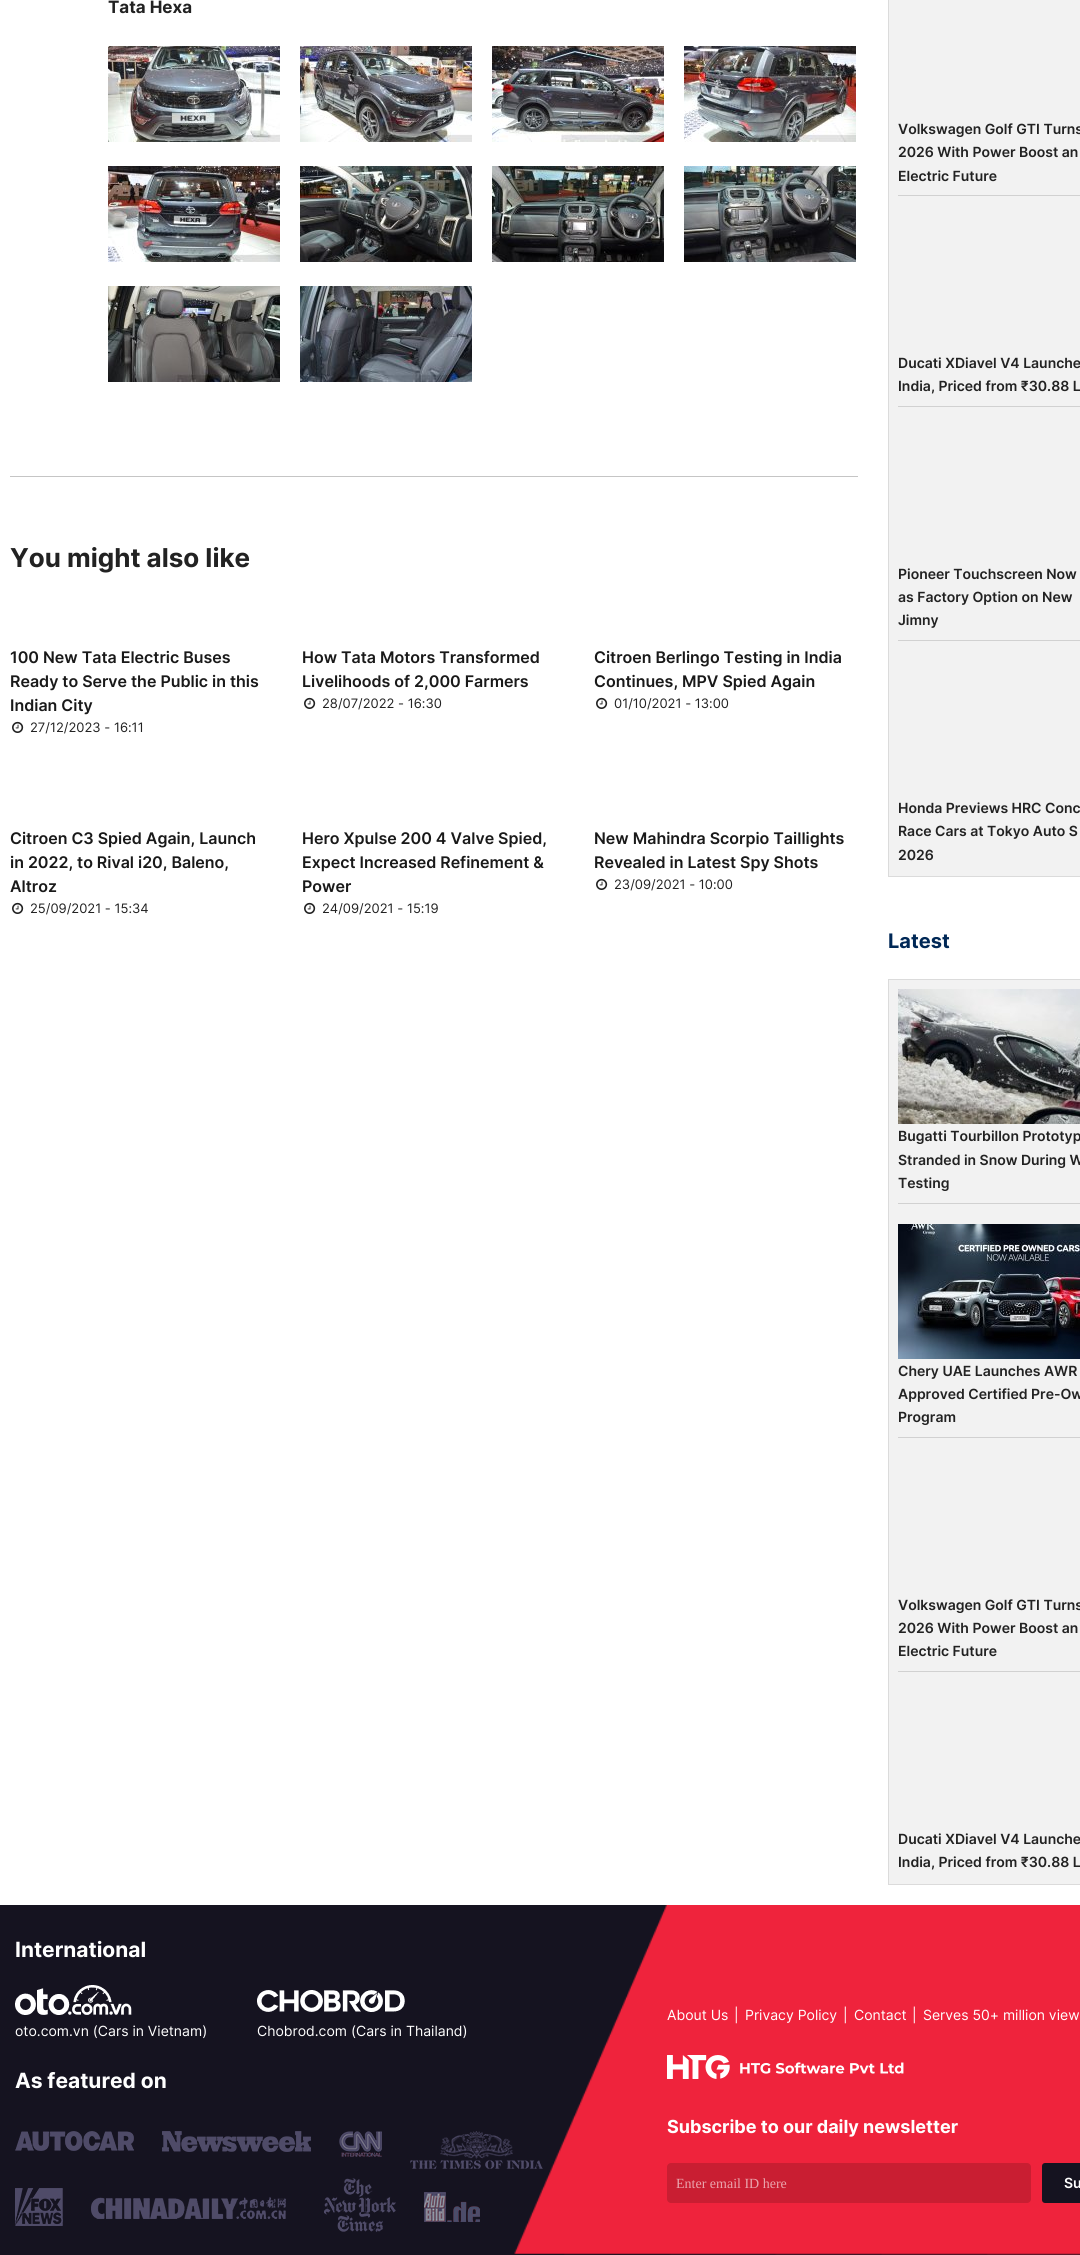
import math
import cairocffi as cairo

surface = cairo.ImageSurface(cairo.FORMAT_RGB24, 1080, 2255)
cr = cairo.Context(surface)
options = cairo.FontOptions()
options.set_hint_metrics(cairo.HINT_METRICS_OFF)
options.set_hint_style(cairo.HINT_STYLE_NONE)
cr.set_font_options(options)
cr.set_miter_limit(4)


def use_color(code):
    cr.set_source_rgb(*(v / 255 for v in bytes.fromhex(code[-6:])))


def round_rect(x, y, w, h, r):
    cr.new_sub_path()
    for i, (u, v) in enumerate([(x + w - r, y + h - r), (x + r, y + h - r), (x + r, y + r), (x + w - r, y + r)]):
        cr.arc(u, v, r, i * math.pi / 2, (i + 1) * math.pi / 2)
    cr.close_path()


def picture(path, x, y, w, h):
    cr.save()
    cr.set_source_surface(cairo.ImageSurface.create_from_png(path), x, y)
    cr.rectangle(x, y, w, h)
    cr.fill()
    cr.restore()


use_color("#ffffff")
cr.paint()
use_color("#c5c5c5")
cr.rectangle(10, 476, 848, 1)
cr.fill()
cr.select_font_face("Inter", cairo.FONT_SLANT_NORMAL, cairo.FONT_WEIGHT_BOLD)
cr.set_font_size(17)
use_color("#222222")
cr.move_to(108, 13)
cr.show_text("Tata Hexa")
picture("img1.png", 108, 46, 172, 96)
picture("img2.png", 300, 46, 172, 96)
picture("img3.png", 492, 46, 172, 96)
picture("img4.png", 684, 46, 172, 96)
picture("img5.png", 108, 166, 172, 96)
picture("img6.png", 300, 166, 172, 96)
picture("img7.png", 492, 166, 172, 96)
picture("img8.png", 684, 166, 172, 96)
picture("img9.png", 108, 286, 172, 96)
picture("img10.png", 300, 286, 172, 96)
cr.set_font_size(26)
cr.move_to(10, 567)
cr.show_text("You might also like")
cr.select_font_face("Inter SemiBold")
cr.set_font_size(16)
use_color("#191919")
cr.move_to(10, 663)
cr.show_text("100 New Tata Electric Buses")
cr.move_to(10, 687)
cr.show_text("Ready to Serve the Public in this")
cr.move_to(10, 711)
cr.show_text("Indian City")
picture("img11.png", 12, 721, 12, 12)
cr.select_font_face("Inter")
cr.set_font_size(13)
use_color("#222222")
cr.move_to(30, 732)
cr.show_text("27/12/2023 - 16:11")
cr.select_font_face("Inter SemiBold")
cr.set_font_size(16)
use_color("#191919")
cr.move_to(302, 663)
cr.show_text("How Tata Motors Transformed")
cr.move_to(302, 687)
cr.show_text("Livelihoods of 2,000 Farmers")
picture("img11.png", 304, 697, 12, 12)
cr.select_font_face("Inter")
cr.set_font_size(13)
use_color("#222222")
cr.move_to(322, 708)
cr.show_text("28/07/2022 - 16:30")
cr.select_font_face("Inter SemiBold")
cr.set_font_size(16)
use_color("#191919")
cr.move_to(594, 663)
cr.show_text("Citroen Berlingo Testing in India")
cr.move_to(594, 687)
cr.show_text("Continues, MPV Spied Again")
picture("img11.png", 596, 697, 12, 12)
cr.select_font_face("Inter")
cr.set_font_size(13)
use_color("#222222")
cr.move_to(614, 708)
cr.show_text("01/10/2021 - 13:00")
cr.select_font_face("Inter SemiBold")
cr.set_font_size(16)
use_color("#191919")
cr.move_to(10, 844)
cr.show_text("Citroen C3 Spied Again, Launch")
cr.move_to(10, 868)
cr.show_text("in 2022, to Rival i20, Baleno,")
cr.move_to(10, 892)
cr.show_text("Altroz")
picture("img11.png", 12, 902, 12, 12)
cr.select_font_face("Inter")
cr.set_font_size(13)
use_color("#222222")
cr.move_to(30, 913)
cr.show_text("25/09/2021 - 15:34")
cr.select_font_face("Inter SemiBold")
cr.set_font_size(16)
use_color("#191919")
cr.move_to(302, 844)
cr.show_text("Hero Xpulse 200 4 Valve Spied,")
cr.move_to(302, 868)
cr.show_text("Expect Increased Refinement &")
cr.move_to(302, 892)
cr.show_text("Power")
picture("img11.png", 304, 902, 12, 12)
cr.select_font_face("Inter")
cr.set_font_size(13)
use_color("#222222")
cr.move_to(322, 913)
cr.show_text("24/09/2021 - 15:19")
cr.select_font_face("Inter SemiBold")
cr.set_font_size(16)
use_color("#191919")
cr.move_to(594, 844)
cr.show_text("New Mahindra Scorpio Taillights")
cr.move_to(594, 868)
cr.show_text("Revealed in Latest Spy Shots")
picture("img11.png", 596, 878, 12, 12)
cr.select_font_face("Inter")
cr.set_font_size(13)
use_color("#222222")
cr.move_to(614, 889)
cr.show_text("23/09/2021 - 10:00")
use_color("#f2f2f2")
cr.rectangle(888.5, -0.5, 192, 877)
cr.fill_preserve()
use_color("#dbdbdb")
cr.set_line_width(1)
cr.stroke()
use_color("#d1d1d1")
cr.rectangle(898, 195, 182, 1)
cr.fill()
cr.select_font_face("Inter SemiBold")
cr.set_font_size(14)
use_color("#222222")
cr.move_to(898, 134)
cr.show_text("Volkswagen Golf GTI Turns")
cr.move_to(898, 157)
cr.show_text("2026 With Power Boost an")
cr.move_to(898, 181)
cr.show_text("Electric Future")
use_color("#d1d1d1")
cr.rectangle(898, 406, 182, 1)
cr.fill()
use_color("#222222")
cr.move_to(898, 368)
cr.show_text("Ducati XDiavel V4 Launche")
cr.move_to(898, 391)
cr.show_text("India, Priced from ₹30.88 L")
use_color("#d1d1d1")
cr.rectangle(898, 640, 182, 1)
cr.fill()
use_color("#222222")
cr.move_to(898, 579)
cr.show_text("Pioneer Touchscreen Now")
cr.move_to(898, 602)
cr.show_text("as Factory Option on New")
cr.move_to(898, 625)
cr.show_text("Jimny")
cr.move_to(898, 813)
cr.show_text("Honda Previews HRC Conc")
cr.move_to(898, 836)
cr.show_text("Race Cars at Tokyo Auto S")
cr.move_to(898, 860)
cr.show_text("2026")
cr.select_font_face("Inter", cairo.FONT_SLANT_NORMAL, cairo.FONT_WEIGHT_BOLD)
cr.set_font_size(20)
use_color("#002856")
cr.move_to(888, 948)
cr.show_text("Latest")
use_color("#f2f2f2")
cr.rectangle(888.5, 979.5, 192, 905)
cr.fill_preserve()
use_color("#dbdbdb")
cr.stroke()
use_color("#d1d1d1")
cr.rectangle(898, 1203, 182, 1)
cr.fill()
picture("img12.png", 898, 989, 182, 135)
cr.select_font_face("Inter SemiBold")
cr.set_font_size(14)
use_color("#222222")
cr.move_to(898, 1141)
cr.show_text("Bugatti Tourbillon Prototyp")
cr.move_to(898, 1165)
cr.show_text("Stranded in Snow During W")
cr.move_to(898, 1188)
cr.show_text("Testing")
use_color("#d1d1d1")
cr.rectangle(898, 1437, 182, 1)
cr.fill()
picture("img13.png", 898, 1224, 182, 135)
use_color("#222222")
cr.move_to(898, 1376)
cr.show_text("Chery UAE Launches AWR")
cr.move_to(898, 1399)
cr.show_text("Approved Certified Pre-Ow")
cr.move_to(898, 1422)
cr.show_text("Program")
use_color("#d1d1d1")
cr.rectangle(898, 1671, 182, 1)
cr.fill()
use_color("#222222")
cr.move_to(898, 1610)
cr.show_text("Volkswagen Golf GTI Turns")
cr.move_to(898, 1633)
cr.show_text("2026 With Power Boost an")
cr.move_to(898, 1656)
cr.show_text("Electric Future")
cr.move_to(898, 1844)
cr.show_text("Ducati XDiavel V4 Launche")
cr.move_to(898, 1867)
cr.show_text("India, Priced from ₹30.88 L")
picture("img14.png", 0, 1905, 1080, 350)
cr.select_font_face("Inter", cairo.FONT_SLANT_NORMAL, cairo.FONT_WEIGHT_BOLD)
cr.set_font_size(21)
use_color("#ffffff")
cr.move_to(15, 1957)
cr.show_text("International")
picture("img15.png", 15, 1985, 117, 30)
cr.select_font_face("Inter")
cr.set_font_size(14)
cr.move_to(15, 2036)
cr.show_text("oto.com.vn (Cars in Vietnam)")
picture("img16.png", 257, 1990, 148, 22)
cr.move_to(257, 2036)
cr.show_text("Chobrod.com (Cars in Thailand)")
cr.select_font_face("Inter", cairo.FONT_SLANT_NORMAL, cairo.FONT_WEIGHT_BOLD)
cr.set_font_size(21)
cr.move_to(15, 2088)
cr.show_text("As featured on")
picture("img17.png", 15, 2131, 119, 20)
picture("img18.png", 162, 2131, 149, 21)
picture("img19.png", 339, 2131, 43, 26)
picture("img20.png", 410, 2131, 133, 38)
picture("img21.png", 15, 2188, 48, 38)
picture("img22.png", 91, 2197, 195, 22)
picture("img23.png", 324, 2178, 72, 54)
picture("img24.png", 424, 2192, 56, 30)
cr.select_font_face("Inter")
cr.set_font_size(14)
cr.move_to(667, 2020)
cr.show_text("About Us")
cr.move_to(734, 2020)
cr.show_text("|")
cr.move_to(745, 2020)
cr.show_text("Privacy Policy")
cr.move_to(843, 2020)
cr.show_text("|")
cr.move_to(854, 2020)
cr.show_text("Contact")
cr.move_to(912, 2020)
cr.show_text("|")
cr.move_to(923, 2020)
cr.show_text("Serves 50+ million view")
picture("img25.png", 667, 2055, 237, 24)
cr.select_font_face("Inter", cairo.FONT_SLANT_NORMAL, cairo.FONT_WEIGHT_BOLD)
cr.set_font_size(18)
cr.move_to(667, 2133)
cr.show_text("Subscribe to our daily newsletter")
use_color("#c91e32")
round_rect(667, 2163, 364, 40, 4)
cr.fill()
cr.select_font_face("Liberation Serif")
cr.set_font_size(14)
use_color("#e9a5ad")
cr.move_to(676, 2188)
cr.show_text("Enter email ID here")
use_color("#151320")
round_rect(1042, 2163, 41, 40, 3)
cr.fill()
cr.select_font_face("Inter SemiBold")
use_color("#ffffff")
cr.move_to(1064, 2188)
cr.show_text("Su")
surface.write_to_png("result.png")
